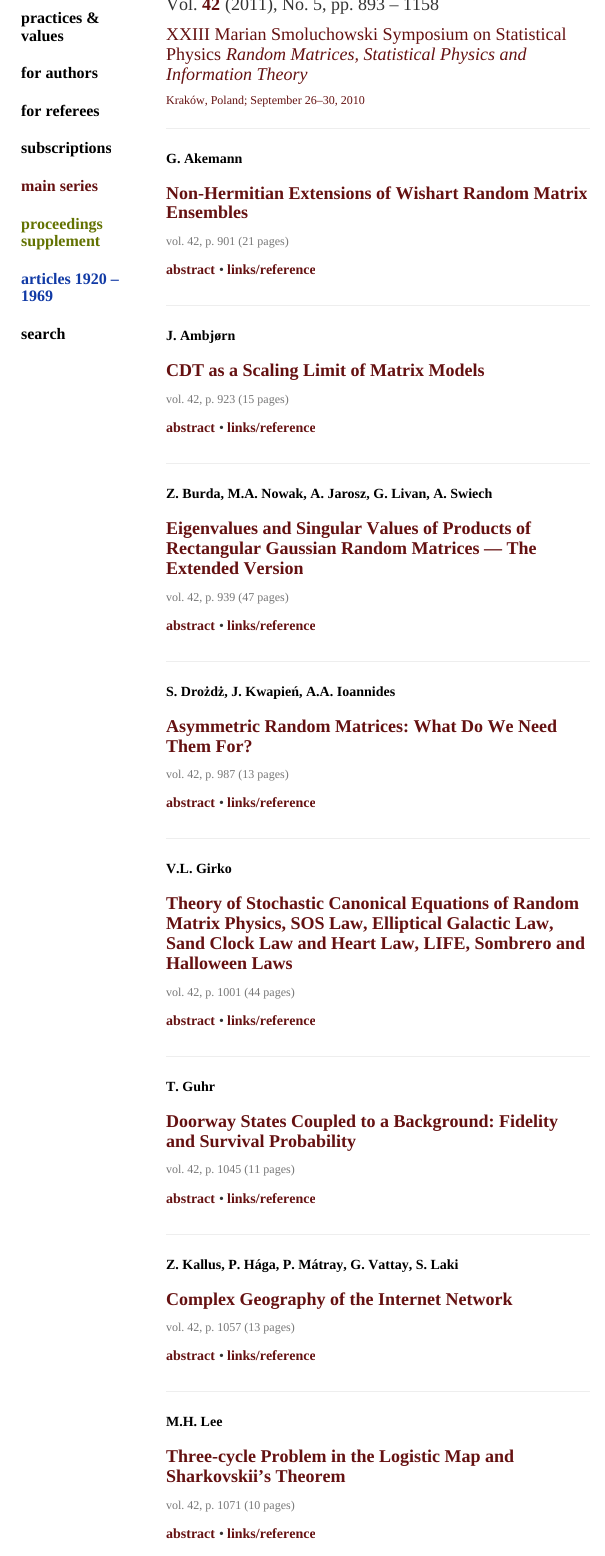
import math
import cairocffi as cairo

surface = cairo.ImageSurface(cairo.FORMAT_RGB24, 605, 1556)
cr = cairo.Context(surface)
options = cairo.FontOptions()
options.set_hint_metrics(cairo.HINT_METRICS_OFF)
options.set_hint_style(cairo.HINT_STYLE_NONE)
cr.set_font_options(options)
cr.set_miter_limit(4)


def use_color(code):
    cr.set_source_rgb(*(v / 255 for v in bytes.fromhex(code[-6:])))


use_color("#ffffff")
cr.paint()
cr.select_font_face("Liberation Serif", cairo.FONT_SLANT_NORMAL, cairo.FONT_WEIGHT_BOLD)
cr.set_font_size(16)
use_color("#000000")
cr.move_to(21, 23)
cr.show_text("practices &")
cr.move_to(21, 41)
cr.show_text("values")
cr.move_to(21, 78)
cr.show_text("for authors")
cr.move_to(21, 116)
cr.show_text("for referees")
cr.move_to(21, 153)
cr.show_text("subscriptions")
use_color("#651111")
cr.move_to(21, 191)
cr.show_text("main series")
use_color("#627201")
cr.move_to(21, 229)
cr.show_text("proceedings")
cr.move_to(21, 246)
cr.show_text("supplement")
use_color("#113aa5")
cr.move_to(21, 284)
cr.show_text("articles 1920 –")
cr.move_to(21, 301)
cr.show_text("1969")
use_color("#000000")
cr.move_to(21, 339)
cr.show_text("search")
cr.select_font_face("Liberation Serif")
cr.set_font_size(18)
use_color("#333333")
cr.move_to(166, 10)
cr.show_text("Vol.")
cr.select_font_face("Liberation Serif", cairo.FONT_SLANT_NORMAL, cairo.FONT_WEIGHT_BOLD)
use_color("#651111")
cr.move_to(202, 10)
cr.show_text("42")
cr.select_font_face("Liberation Serif")
use_color("#333333")
cr.move_to(225, 10)
cr.show_text("(2011), No. 5, pp. 893 – 1158")
use_color("#651111")
cr.move_to(166, 40)
cr.show_text("XXIII Marian Smoluchowski Symposium on Statistical")
cr.move_to(166, 60)
cr.show_text("Physics")
cr.select_font_face("Liberation Serif", cairo.FONT_SLANT_ITALIC)
cr.move_to(226, 60)
cr.show_text("Random Matrices, Statistical Physics and")
cr.move_to(166, 80)
cr.show_text("Information Theory")
cr.select_font_face("Liberation Serif")
cr.set_font_size(12)
cr.move_to(166, 104)
cr.show_text("Kraków, Poland; September 26–30, 2010")
use_color("#eeeeee")
cr.rectangle(166, 128, 424, 1)
cr.fill()
cr.select_font_face("Liberation Serif", cairo.FONT_SLANT_NORMAL, cairo.FONT_WEIGHT_BOLD)
cr.set_font_size(14)
use_color("#000000")
cr.move_to(166, 163)
cr.show_text("G. Akemann")
cr.set_font_size(18)
use_color("#651111")
cr.move_to(166, 199)
cr.show_text("Non-Hermitian Extensions of Wishart Random Matrix")
cr.move_to(166, 218)
cr.show_text("Ensembles")
cr.select_font_face("Liberation Serif")
cr.set_font_size(12)
use_color("#777777")
cr.move_to(166, 245)
cr.show_text("vol. 42, p. 901 (21 pages)")
cr.select_font_face("Liberation Serif", cairo.FONT_SLANT_NORMAL, cairo.FONT_WEIGHT_BOLD)
cr.set_font_size(14)
use_color("#651111")
cr.move_to(166, 274)
cr.show_text("abstract")
cr.select_font_face("Liberation Serif")
use_color("#333333")
cr.move_to(219, 274)
cr.show_text("•")
cr.select_font_face("Liberation Serif", cairo.FONT_SLANT_NORMAL, cairo.FONT_WEIGHT_BOLD)
use_color("#651111")
cr.move_to(227, 274)
cr.show_text("links/reference")
use_color("#eeeeee")
cr.rectangle(166, 305, 424, 1)
cr.fill()
use_color("#000000")
cr.move_to(166, 340)
cr.show_text("J. Ambjørn")
cr.set_font_size(18)
use_color("#651111")
cr.move_to(166, 376)
cr.show_text("CDT as a Scaling Limit of Matrix Models")
cr.select_font_face("Liberation Serif")
cr.set_font_size(12)
use_color("#777777")
cr.move_to(166, 403)
cr.show_text("vol. 42, p. 923 (15 pages)")
cr.select_font_face("Liberation Serif", cairo.FONT_SLANT_NORMAL, cairo.FONT_WEIGHT_BOLD)
cr.set_font_size(14)
use_color("#651111")
cr.move_to(166, 432)
cr.show_text("abstract")
cr.select_font_face("Liberation Serif")
use_color("#333333")
cr.move_to(219, 432)
cr.show_text("•")
cr.select_font_face("Liberation Serif", cairo.FONT_SLANT_NORMAL, cairo.FONT_WEIGHT_BOLD)
use_color("#651111")
cr.move_to(227, 432)
cr.show_text("links/reference")
use_color("#eeeeee")
cr.rectangle(166, 463, 424, 1)
cr.fill()
use_color("#000000")
cr.move_to(166, 498)
cr.show_text("Z. Burda, M.A. Nowak, A. Jarosz, G. Livan, A. Swiech")
cr.set_font_size(18)
use_color("#651111")
cr.move_to(166, 534)
cr.show_text("Eigenvalues and Singular Values of Products of")
cr.move_to(166, 554)
cr.show_text("Rectangular Gaussian Random Matrices — The")
cr.move_to(166, 574)
cr.show_text("Extended Version")
cr.select_font_face("Liberation Serif")
cr.set_font_size(12)
use_color("#777777")
cr.move_to(166, 601)
cr.show_text("vol. 42, p. 939 (47 pages)")
cr.select_font_face("Liberation Serif", cairo.FONT_SLANT_NORMAL, cairo.FONT_WEIGHT_BOLD)
cr.set_font_size(14)
use_color("#651111")
cr.move_to(166, 630)
cr.show_text("abstract")
cr.select_font_face("Liberation Serif")
use_color("#333333")
cr.move_to(219, 630)
cr.show_text("•")
cr.select_font_face("Liberation Serif", cairo.FONT_SLANT_NORMAL, cairo.FONT_WEIGHT_BOLD)
use_color("#651111")
cr.move_to(227, 630)
cr.show_text("links/reference")
use_color("#eeeeee")
cr.rectangle(166, 661, 424, 1)
cr.fill()
use_color("#000000")
cr.move_to(166, 696)
cr.show_text("S. Drożdż, J. Kwapień, A.A. Ioannides")
cr.set_font_size(18)
use_color("#651111")
cr.move_to(166, 732)
cr.show_text("Asymmetric Random Matrices: What Do We Need")
cr.move_to(166, 752)
cr.show_text("Them For?")
cr.select_font_face("Liberation Serif")
cr.set_font_size(12)
use_color("#777777")
cr.move_to(166, 778)
cr.show_text("vol. 42, p. 987 (13 pages)")
cr.select_font_face("Liberation Serif", cairo.FONT_SLANT_NORMAL, cairo.FONT_WEIGHT_BOLD)
cr.set_font_size(14)
use_color("#651111")
cr.move_to(166, 807)
cr.show_text("abstract")
cr.select_font_face("Liberation Serif")
use_color("#333333")
cr.move_to(219, 807)
cr.show_text("•")
cr.select_font_face("Liberation Serif", cairo.FONT_SLANT_NORMAL, cairo.FONT_WEIGHT_BOLD)
use_color("#651111")
cr.move_to(227, 807)
cr.show_text("links/reference")
use_color("#eeeeee")
cr.rectangle(166, 838, 424, 1)
cr.fill()
use_color("#000000")
cr.move_to(166, 873)
cr.show_text("V.L. Girko")
cr.set_font_size(18)
use_color("#651111")
cr.move_to(166, 909)
cr.show_text("Theory of Stochastic Canonical Equations of Random")
cr.move_to(166, 929)
cr.show_text("Matrix Physics, SOS Law, Elliptical Galactic Law,")
cr.move_to(166, 949)
cr.show_text("Sand Clock Law and Heart Law, LIFE, Sombrero and")
cr.move_to(166, 969)
cr.show_text("Halloween Laws")
cr.select_font_face("Liberation Serif")
cr.set_font_size(12)
use_color("#777777")
cr.move_to(166, 996)
cr.show_text("vol. 42, p. 1001 (44 pages)")
cr.select_font_face("Liberation Serif", cairo.FONT_SLANT_NORMAL, cairo.FONT_WEIGHT_BOLD)
cr.set_font_size(14)
use_color("#651111")
cr.move_to(166, 1025)
cr.show_text("abstract")
cr.select_font_face("Liberation Serif")
use_color("#333333")
cr.move_to(219, 1025)
cr.show_text("•")
cr.select_font_face("Liberation Serif", cairo.FONT_SLANT_NORMAL, cairo.FONT_WEIGHT_BOLD)
use_color("#651111")
cr.move_to(227, 1025)
cr.show_text("links/reference")
use_color("#eeeeee")
cr.rectangle(166, 1056, 424, 1)
cr.fill()
use_color("#000000")
cr.move_to(166, 1091)
cr.show_text("T. Guhr")
cr.set_font_size(18)
use_color("#651111")
cr.move_to(166, 1127)
cr.show_text("Doorway States Coupled to a Background: Fidelity")
cr.move_to(166, 1147)
cr.show_text("and Survival Probability")
cr.select_font_face("Liberation Serif")
cr.set_font_size(12)
use_color("#777777")
cr.move_to(166, 1173)
cr.show_text("vol. 42, p. 1045 (11 pages)")
cr.select_font_face("Liberation Serif", cairo.FONT_SLANT_NORMAL, cairo.FONT_WEIGHT_BOLD)
cr.set_font_size(14)
use_color("#651111")
cr.move_to(166, 1203)
cr.show_text("abstract")
cr.select_font_face("Liberation Serif")
use_color("#333333")
cr.move_to(219, 1203)
cr.show_text("•")
cr.select_font_face("Liberation Serif", cairo.FONT_SLANT_NORMAL, cairo.FONT_WEIGHT_BOLD)
use_color("#651111")
cr.move_to(227, 1203)
cr.show_text("links/reference")
use_color("#eeeeee")
cr.rectangle(166, 1234, 424, 1)
cr.fill()
use_color("#000000")
cr.move_to(166, 1269)
cr.show_text("Z. Kallus, P. Hága, P. Mátray, G. Vattay, S. Laki")
cr.set_font_size(18)
use_color("#651111")
cr.move_to(166, 1305)
cr.show_text("Complex Geography of the Internet Network")
cr.select_font_face("Liberation Serif")
cr.set_font_size(12)
use_color("#777777")
cr.move_to(166, 1331)
cr.show_text("vol. 42, p. 1057 (13 pages)")
cr.select_font_face("Liberation Serif", cairo.FONT_SLANT_NORMAL, cairo.FONT_WEIGHT_BOLD)
cr.set_font_size(14)
use_color("#651111")
cr.move_to(166, 1360)
cr.show_text("abstract")
cr.select_font_face("Liberation Serif")
use_color("#333333")
cr.move_to(219, 1360)
cr.show_text("•")
cr.select_font_face("Liberation Serif", cairo.FONT_SLANT_NORMAL, cairo.FONT_WEIGHT_BOLD)
use_color("#651111")
cr.move_to(227, 1360)
cr.show_text("links/reference")
use_color("#eeeeee")
cr.rectangle(166, 1391, 424, 1)
cr.fill()
use_color("#000000")
cr.move_to(166, 1426)
cr.show_text("M.H. Lee")
cr.set_font_size(18)
use_color("#651111")
cr.move_to(166, 1462)
cr.show_text("Three-cycle Problem in the Logistic Map and")
cr.move_to(166, 1482)
cr.show_text("Sharkovskii’s Theorem")
cr.select_font_face("Liberation Serif")
cr.set_font_size(12)
use_color("#777777")
cr.move_to(166, 1509)
cr.show_text("vol. 42, p. 1071 (10 pages)")
cr.select_font_face("Liberation Serif", cairo.FONT_SLANT_NORMAL, cairo.FONT_WEIGHT_BOLD)
cr.set_font_size(14)
use_color("#651111")
cr.move_to(166, 1538)
cr.show_text("abstract")
cr.select_font_face("Liberation Serif")
use_color("#333333")
cr.move_to(219, 1538)
cr.show_text("•")
cr.select_font_face("Liberation Serif", cairo.FONT_SLANT_NORMAL, cairo.FONT_WEIGHT_BOLD)
use_color("#651111")
cr.move_to(227, 1538)
cr.show_text("links/reference")
surface.write_to_png("result.png")
